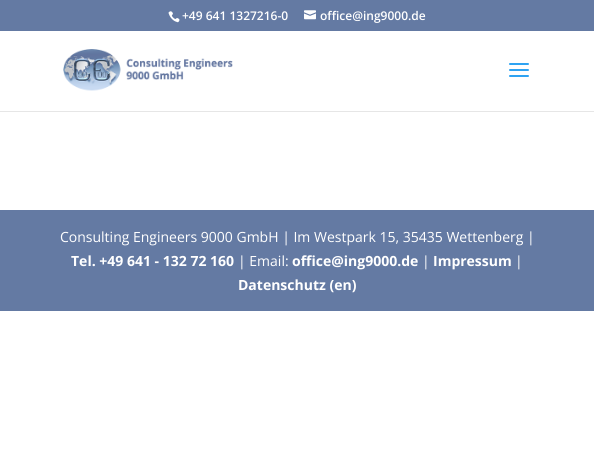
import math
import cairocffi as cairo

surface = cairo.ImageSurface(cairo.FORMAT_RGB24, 594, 459)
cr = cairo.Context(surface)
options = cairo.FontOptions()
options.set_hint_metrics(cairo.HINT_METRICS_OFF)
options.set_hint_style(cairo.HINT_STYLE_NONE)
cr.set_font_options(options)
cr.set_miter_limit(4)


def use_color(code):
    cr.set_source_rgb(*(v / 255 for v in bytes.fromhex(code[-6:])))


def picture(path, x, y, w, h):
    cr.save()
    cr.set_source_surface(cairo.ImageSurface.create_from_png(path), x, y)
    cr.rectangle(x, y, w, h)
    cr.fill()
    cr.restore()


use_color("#ffffff")
cr.paint()
use_color("#647aa3")
cr.rectangle(0, 0, 594, 31)
cr.fill()
picture("img1.png", 168, 11, 12, 12)
cr.select_font_face("Open Sans SemiBold")
cr.set_font_size(12)
use_color("#ffffff")
cr.move_to(182, 20)
cr.show_text("+49 641 1327216-0")
picture("img2.png", 304, 10, 12, 10)
cr.move_to(320, 20)
cr.show_text("office@ing9000.de")
use_color("#e6e6e6")
cr.rectangle(0, 111, 594, 1)
cr.fill()
picture("img3.png", 63, 49, 170, 42)
picture("img4.png", 509, 63, 20, 14)
use_color("#647aa3")
cr.rectangle(0, 210, 594, 101)
cr.fill()
cr.select_font_face("Open Sans")
cr.set_font_size(14)
use_color("#ffffff")
cr.move_to(60, 242)
cr.show_text("Consulting Engineers 9000 GmbH | Im Westpark 15, 35435 Wettenberg |")
cr.select_font_face("Open Sans", cairo.FONT_SLANT_NORMAL, cairo.FONT_WEIGHT_BOLD)
cr.move_to(71, 266)
cr.show_text("Tel. +49 641 - 132 72 160")
cr.select_font_face("Open Sans")
cr.move_to(238, 266)
cr.show_text("| Email:")
cr.select_font_face("Open Sans", cairo.FONT_SLANT_NORMAL, cairo.FONT_WEIGHT_BOLD)
cr.move_to(292, 266)
cr.show_text("office@ing9000.de")
cr.select_font_face("Open Sans")
cr.move_to(422, 266)
cr.show_text("|")
cr.select_font_face("Open Sans", cairo.FONT_SLANT_NORMAL, cairo.FONT_WEIGHT_BOLD)
cr.move_to(433, 266)
cr.show_text("Impressum")
cr.select_font_face("Open Sans")
cr.move_to(515, 266)
cr.show_text("|")
cr.select_font_face("Open Sans", cairo.FONT_SLANT_NORMAL, cairo.FONT_WEIGHT_BOLD)
cr.move_to(238, 290)
cr.show_text("Datenschutz (en)")
surface.write_to_png("result.png")
